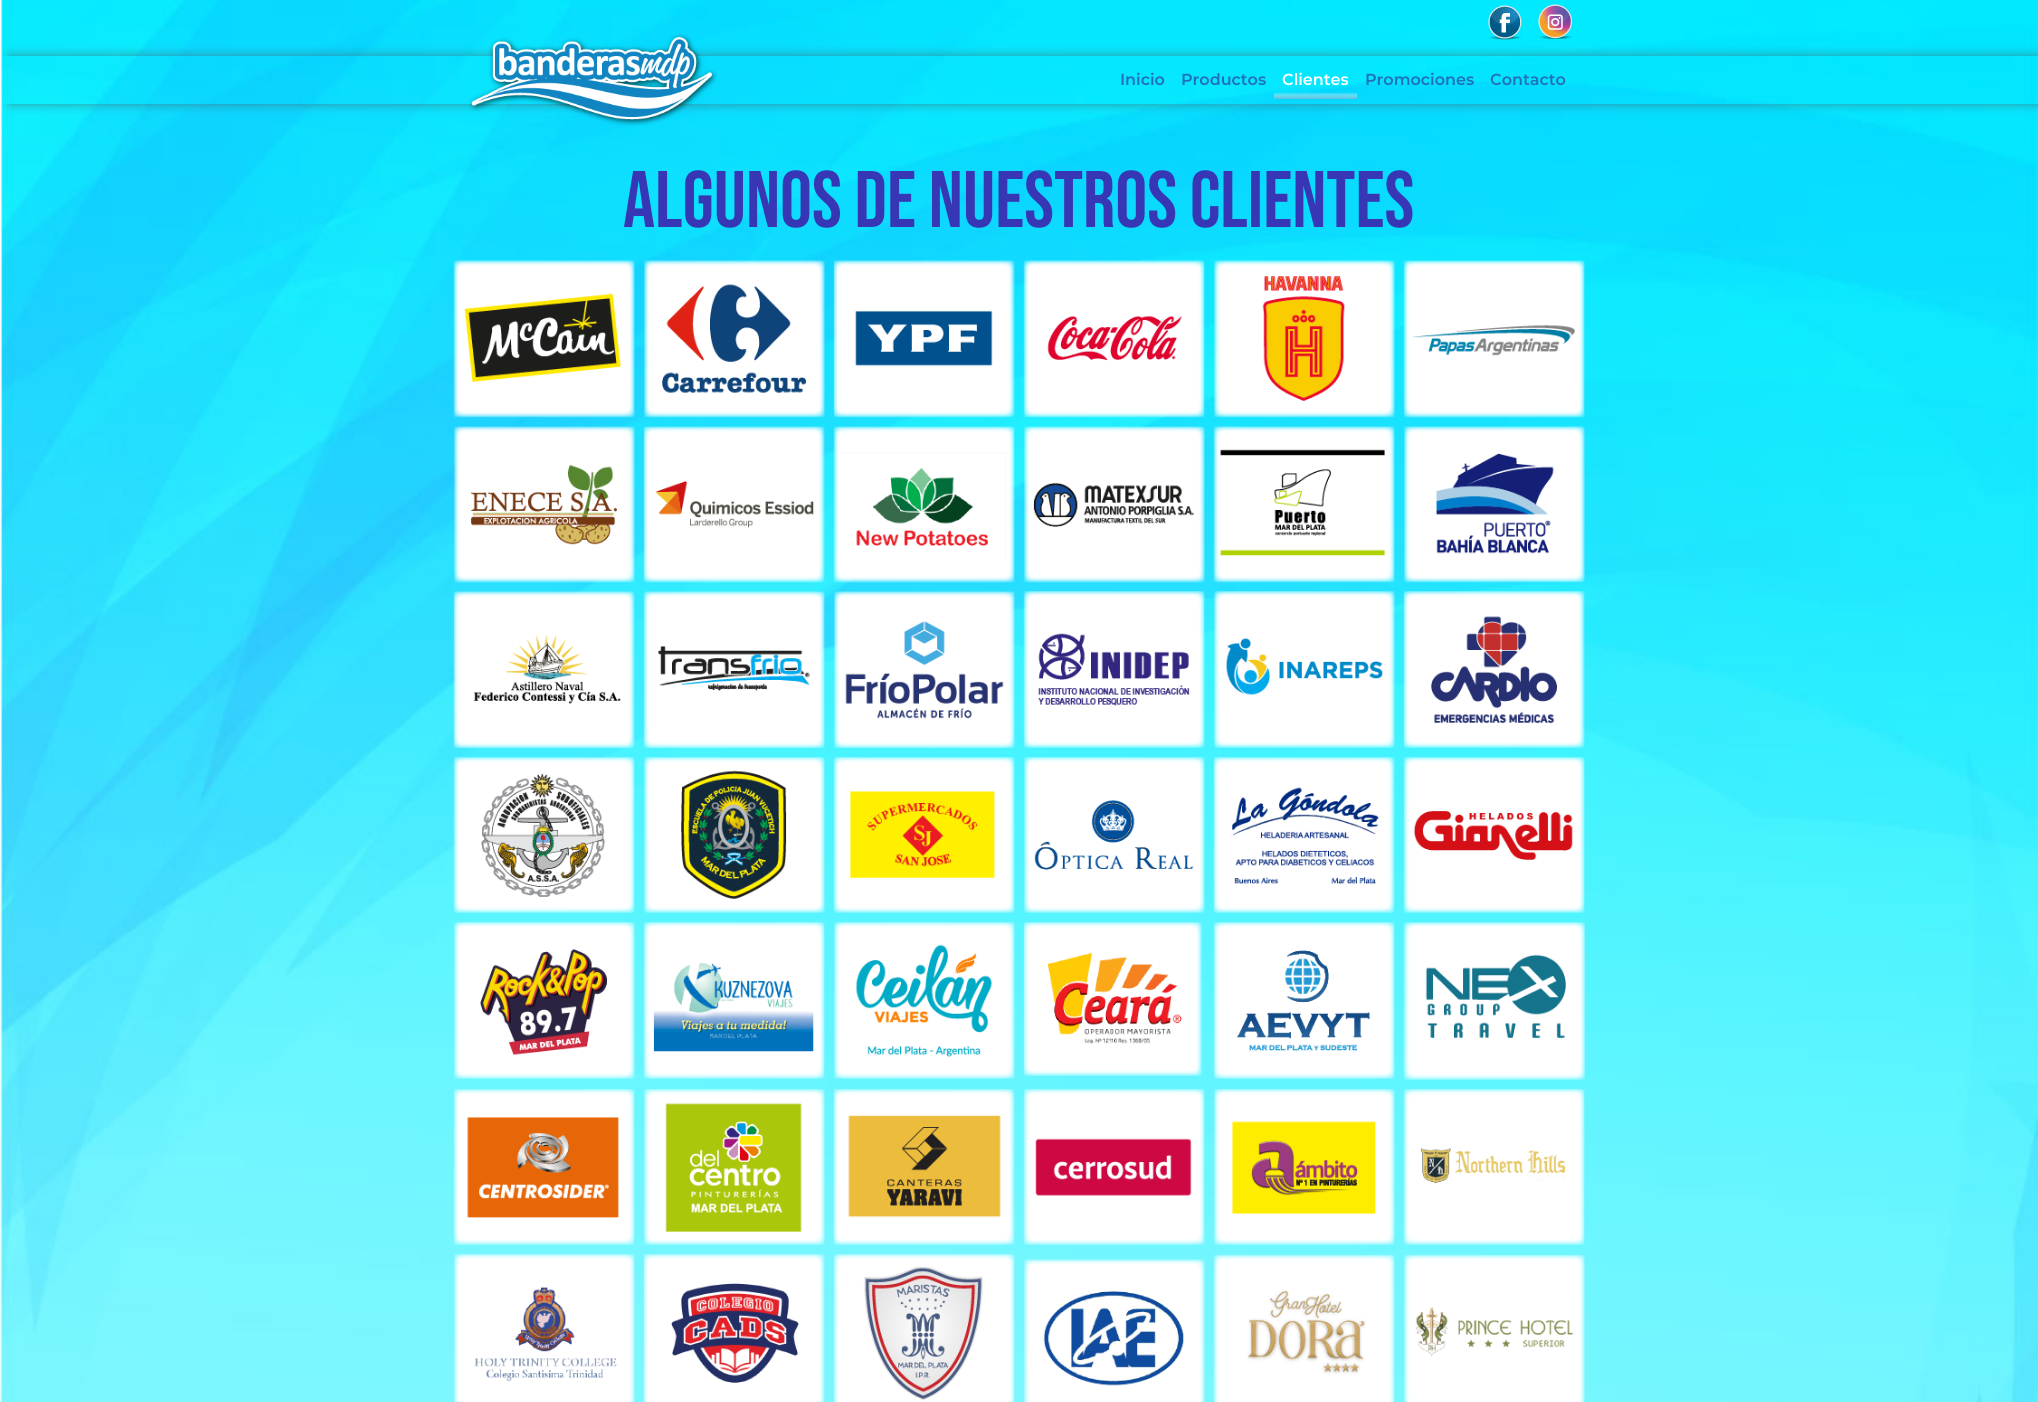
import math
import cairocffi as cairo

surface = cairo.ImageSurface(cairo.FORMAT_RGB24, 2038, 1402)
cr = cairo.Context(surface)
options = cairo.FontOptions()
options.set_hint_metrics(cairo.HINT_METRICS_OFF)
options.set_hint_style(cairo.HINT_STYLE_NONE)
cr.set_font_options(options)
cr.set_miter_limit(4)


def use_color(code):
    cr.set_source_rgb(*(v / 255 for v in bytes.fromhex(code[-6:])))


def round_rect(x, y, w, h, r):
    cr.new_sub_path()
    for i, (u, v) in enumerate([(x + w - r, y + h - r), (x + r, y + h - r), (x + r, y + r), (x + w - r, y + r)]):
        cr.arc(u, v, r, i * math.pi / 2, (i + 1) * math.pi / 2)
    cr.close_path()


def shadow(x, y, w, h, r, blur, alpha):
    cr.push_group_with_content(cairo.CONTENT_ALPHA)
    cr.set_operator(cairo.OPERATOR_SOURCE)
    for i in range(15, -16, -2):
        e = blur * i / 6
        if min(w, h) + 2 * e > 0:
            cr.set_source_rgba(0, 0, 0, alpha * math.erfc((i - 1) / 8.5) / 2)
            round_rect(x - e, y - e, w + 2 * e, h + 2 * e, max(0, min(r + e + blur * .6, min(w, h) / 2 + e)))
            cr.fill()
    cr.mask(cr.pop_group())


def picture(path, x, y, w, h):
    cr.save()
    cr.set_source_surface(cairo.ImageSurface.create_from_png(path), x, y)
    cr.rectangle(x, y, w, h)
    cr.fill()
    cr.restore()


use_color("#ffffff")
cr.paint()
picture("img1.png", 0, 0, 2038, 1402)
picture("img2.png", 1488, 5, 34, 35)
picture("img3.png", 1538, 4, 34, 35)
cr.save()
cr.set_fill_rule(cairo.FILL_RULE_EVEN_ODD)
cr.new_path()
cr.move_to(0, 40)
cr.line_to(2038, 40)
cr.line_to(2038, 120)
cr.line_to(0, 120)
cr.close_path()
cr.move_to(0, 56)
cr.line_to(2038, 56)
cr.line_to(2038, 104)
cr.line_to(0, 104)
cr.close_path()
cr.clip()
use_color("#505050")
shadow(10, 56, 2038, 48, 0, 5, 0.6)
cr.restore()
picture("img4.png", 469, 34, 248, 92)
cr.select_font_face("Montserrat SemiBold")
cr.set_font_size(16)
use_color("#2071b7")
cr.move_to(1120, 85)
cr.show_text("Inicio")
cr.move_to(1181, 85)
cr.show_text("Productos")
picture("img5.png", 1274, 92, 83, 7)
use_color("#ffffff")
cr.move_to(1282, 85)
cr.show_text("Clientes")
use_color("#2071b7")
cr.move_to(1365, 85)
cr.show_text("Promociones")
cr.move_to(1490, 85)
cr.show_text("Contacto")
cr.select_font_face("Bebas Neue")
cr.set_font_size(80)
use_color("#3737b5")
cr.move_to(623, 227)
cr.show_text("Algunos de nuestros clientes")
picture("img6.png", 453, 260, 182, 158)
picture("img7.png", 644, 260, 181, 158)
picture("img8.png", 833, 260, 182, 158)
picture("img9.png", 1023, 260, 182, 158)
picture("img10.png", 1214, 260, 181, 158)
picture("img11.png", 1403, 260, 182, 158)
picture("img12.png", 454, 426, 181, 157)
picture("img13.png", 643, 426, 182, 157)
picture("img14.png", 833, 426, 182, 157)
picture("img15.png", 1024, 426, 181, 157)
picture("img16.png", 1213, 426, 182, 157)
picture("img17.png", 1404, 426, 181, 157)
picture("img18.png", 453, 591, 182, 158)
picture("img19.png", 643, 591, 182, 158)
picture("img20.png", 834, 591, 181, 158)
picture("img21.png", 1023, 591, 182, 157)
picture("img22.png", 1214, 591, 181, 157)
picture("img23.png", 1403, 591, 182, 157)
picture("img24.png", 453, 757, 182, 156)
picture("img25.png", 644, 757, 181, 156)
picture("img26.png", 833, 757, 182, 156)
picture("img27.png", 1024, 757, 181, 156)
picture("img28.png", 1213, 757, 182, 156)
picture("img29.png", 1403, 757, 182, 156)
picture("img30.png", 454, 922, 181, 157)
picture("img31.png", 643, 922, 182, 157)
picture("img32.png", 834, 922, 181, 157)
picture("img33.png", 1023, 922, 180, 154)
picture("img34.png", 1213, 922, 182, 157)
picture("img35.png", 1403, 922, 182, 158)
picture("img36.png", 453, 1089, 182, 156)
picture("img37.png", 644, 1089, 181, 156)
picture("img38.png", 833, 1089, 182, 156)
picture("img39.png", 1023, 1089, 182, 156)
picture("img40.png", 1214, 1089, 181, 156)
picture("img41.png", 1403, 1089, 182, 156)
picture("img42.png", 454, 1254, 181, 148)
picture("img43.png", 643, 1254, 182, 148)
picture("img44.png", 833, 1254, 182, 148)
picture("img45.png", 1024, 1259, 181, 143)
picture("img46.png", 1213, 1254, 182, 148)
picture("img47.png", 1404, 1254, 181, 148)
surface.write_to_png("result.png")
